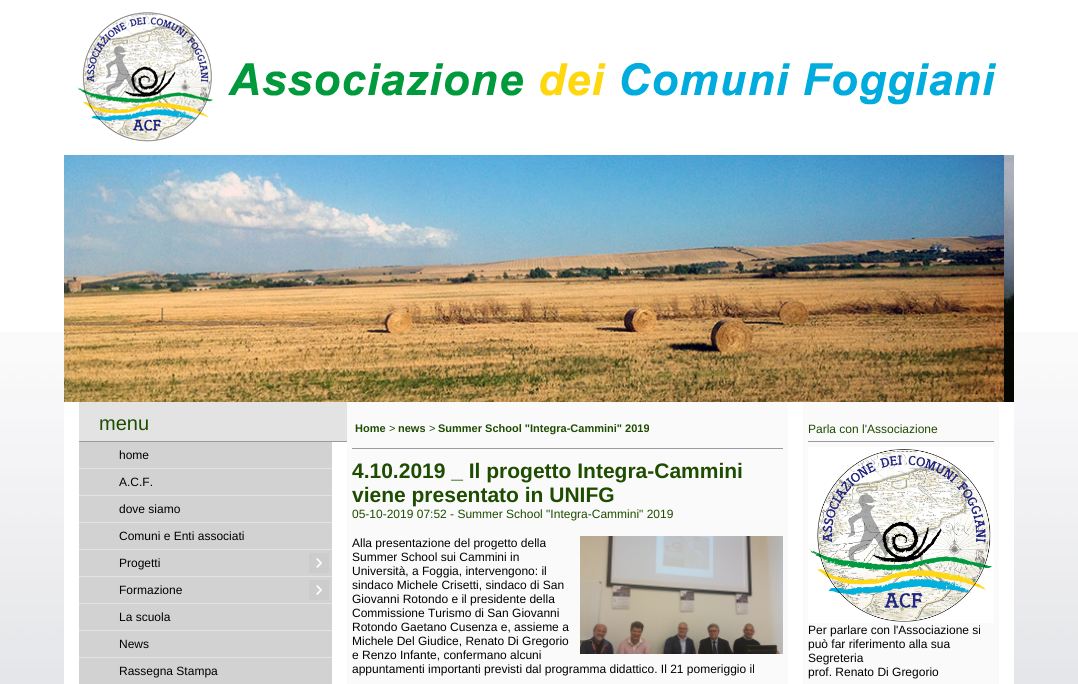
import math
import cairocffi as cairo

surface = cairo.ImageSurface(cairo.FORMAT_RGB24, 1078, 684)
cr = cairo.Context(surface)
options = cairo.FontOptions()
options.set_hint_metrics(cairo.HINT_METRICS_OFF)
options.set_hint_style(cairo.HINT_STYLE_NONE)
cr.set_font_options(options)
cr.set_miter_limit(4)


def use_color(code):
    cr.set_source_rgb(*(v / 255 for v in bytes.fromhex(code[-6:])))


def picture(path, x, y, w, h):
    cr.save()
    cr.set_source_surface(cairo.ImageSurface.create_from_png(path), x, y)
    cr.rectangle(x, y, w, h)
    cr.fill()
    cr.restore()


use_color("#ffffff")
cr.paint()
picture("img1.png", 0, 332, 1078, 352)
picture("img2.png", 77, 12, 919, 130)
picture("img3.png", 64, 155, 940, 247)
picture("img4.png", 1004, 155, 10, 247)
use_color("#ffffff")
cr.rectangle(64, 402, 950, 282)
cr.fill()
use_color("#e3e3e3")
cr.rectangle(79, 402, 268, 39)
cr.fill()
use_color("#9b9b9b")
cr.rectangle(79, 441, 268, 1)
cr.fill()
cr.select_font_face("Liberation Sans")
cr.set_font_size(20)
use_color("#1e4c00")
cr.move_to(99, 430)
cr.show_text("menu")
use_color("#d2d2d2")
cr.rectangle(79, 442, 253, 26)
cr.fill()
use_color("#e3e3e3")
cr.rectangle(79, 468, 253, 1)
cr.fill()
cr.set_font_size(12)
use_color("#000000")
cr.move_to(119, 459)
cr.show_text("home")
use_color("#d2d2d2")
cr.rectangle(79, 469, 253, 26)
cr.fill()
use_color("#e3e3e3")
cr.rectangle(79, 495, 253, 1)
cr.fill()
use_color("#000000")
cr.move_to(119, 486)
cr.show_text("A.C.F.")
use_color("#d2d2d2")
cr.rectangle(79, 496, 253, 26)
cr.fill()
use_color("#e3e3e3")
cr.rectangle(79, 522, 253, 1)
cr.fill()
use_color("#000000")
cr.move_to(119, 513)
cr.show_text("dove siamo")
use_color("#d2d2d2")
cr.rectangle(79, 523, 253, 26)
cr.fill()
use_color("#e3e3e3")
cr.rectangle(79, 549, 253, 1)
cr.fill()
use_color("#000000")
cr.move_to(119, 540)
cr.show_text("Comuni e Enti associati")
use_color("#d2d2d2")
cr.rectangle(79, 550, 253, 26)
cr.fill()
use_color("#e3e3e3")
cr.rectangle(79, 576, 253, 1)
cr.fill()
use_color("#000000")
cr.move_to(119, 567)
cr.show_text("Progetti")
use_color("#cccccc")
cr.rectangle(309, 553, 20, 20)
cr.fill()
picture("img5.png", 316, 558, 6, 10)
use_color("#d2d2d2")
cr.rectangle(79, 577, 253, 26)
cr.fill()
use_color("#e3e3e3")
cr.rectangle(79, 603, 253, 1)
cr.fill()
use_color("#000000")
cr.move_to(119, 594)
cr.show_text("Formazione")
use_color("#cccccc")
cr.rectangle(309, 580, 20, 20)
cr.fill()
picture("img5.png", 316, 585, 6, 10)
use_color("#d2d2d2")
cr.rectangle(79, 604, 253, 26)
cr.fill()
use_color("#e3e3e3")
cr.rectangle(79, 630, 253, 1)
cr.fill()
use_color("#000000")
cr.move_to(119, 621)
cr.show_text("La scuola")
use_color("#d2d2d2")
cr.rectangle(79, 631, 253, 26)
cr.fill()
use_color("#e3e3e3")
cr.rectangle(79, 657, 253, 1)
cr.fill()
use_color("#000000")
cr.move_to(119, 648)
cr.show_text("News")
use_color("#d2d2d2")
cr.rectangle(79, 658, 253, 26)
cr.fill()
use_color("#000000")
cr.move_to(119, 675)
cr.show_text("Rassegna Stampa")
use_color("#fafafa")
cr.rectangle(347, 402, 441, 282)
cr.fill()
use_color("#9b9b9b")
cr.rectangle(352, 448, 431, 1)
cr.fill()
cr.select_font_face("Liberation Sans", cairo.FONT_SLANT_NORMAL, cairo.FONT_WEIGHT_BOLD)
cr.set_font_size(11)
use_color("#1e4c00")
cr.move_to(355, 432)
cr.show_text("Home")
cr.select_font_face("Liberation Sans")
cr.move_to(389, 432)
cr.show_text(">")
cr.select_font_face("Liberation Sans", cairo.FONT_SLANT_NORMAL, cairo.FONT_WEIGHT_BOLD)
cr.move_to(398, 432)
cr.show_text("news")
cr.select_font_face("Liberation Sans")
cr.move_to(429, 432)
cr.show_text(">")
cr.select_font_face("Liberation Sans", cairo.FONT_SLANT_NORMAL, cairo.FONT_WEIGHT_BOLD)
cr.move_to(438, 432)
cr.show_text("Summer School \"Integra-Cammini\" 2019")
cr.set_font_size(21)
cr.move_to(352, 478)
cr.show_text("4.10.2019 _ Il progetto Integra-Cammini")
cr.move_to(352, 502)
cr.show_text("viene presentato in UNIFG")
cr.select_font_face("Liberation Sans")
cr.set_font_size(12)
cr.move_to(352, 518)
cr.show_text("05-10-2019 07:52 - Summer School \"Integra-Cammini\" 2019")
picture("img6.png", 580, 536, 203, 118)
use_color("#000000")
cr.move_to(352, 547)
cr.show_text("Alla presentazione del progetto della")
cr.move_to(352, 561)
cr.show_text("Summer School sui Cammini in")
cr.move_to(352, 575)
cr.show_text("Università, a Foggia, intervengono: il")
cr.move_to(352, 589)
cr.show_text("sindaco Michele Crisetti, sindaco di San")
cr.move_to(352, 603)
cr.show_text("Giovanni Rotondo e il presidente della")
cr.move_to(352, 617)
cr.show_text("Commissione Turismo di San Giovanni")
cr.move_to(352, 631)
cr.show_text("Rotondo Gaetano Cusenza e, assieme a")
cr.move_to(352, 645)
cr.show_text("Michele Del Giudice, Renato Di Gregorio")
cr.move_to(352, 659)
cr.show_text("e Renzo Infante, confermano alcuni")
cr.move_to(352, 673)
cr.show_text("appuntamenti importanti previsti dal programma didattico. Il 21 pomeriggio il")
use_color("#fafafa")
cr.rectangle(803, 402, 196, 282)
cr.fill()
use_color("#9b9b9b")
cr.rectangle(808, 441, 186, 1)
cr.fill()
use_color("#1e4c00")
cr.move_to(808, 433)
cr.show_text("Parla con l'Associazione")
picture("img7.png", 808, 447, 186, 176)
use_color("#000000")
cr.move_to(808, 634)
cr.show_text("Per parlare con l'Associazione si")
cr.move_to(808, 648)
cr.show_text("può far riferimento alla sua")
cr.move_to(808, 662)
cr.show_text("Segreteria")
cr.move_to(808, 676)
cr.show_text("prof. Renato Di Gregorio")
surface.write_to_png("result.png")
